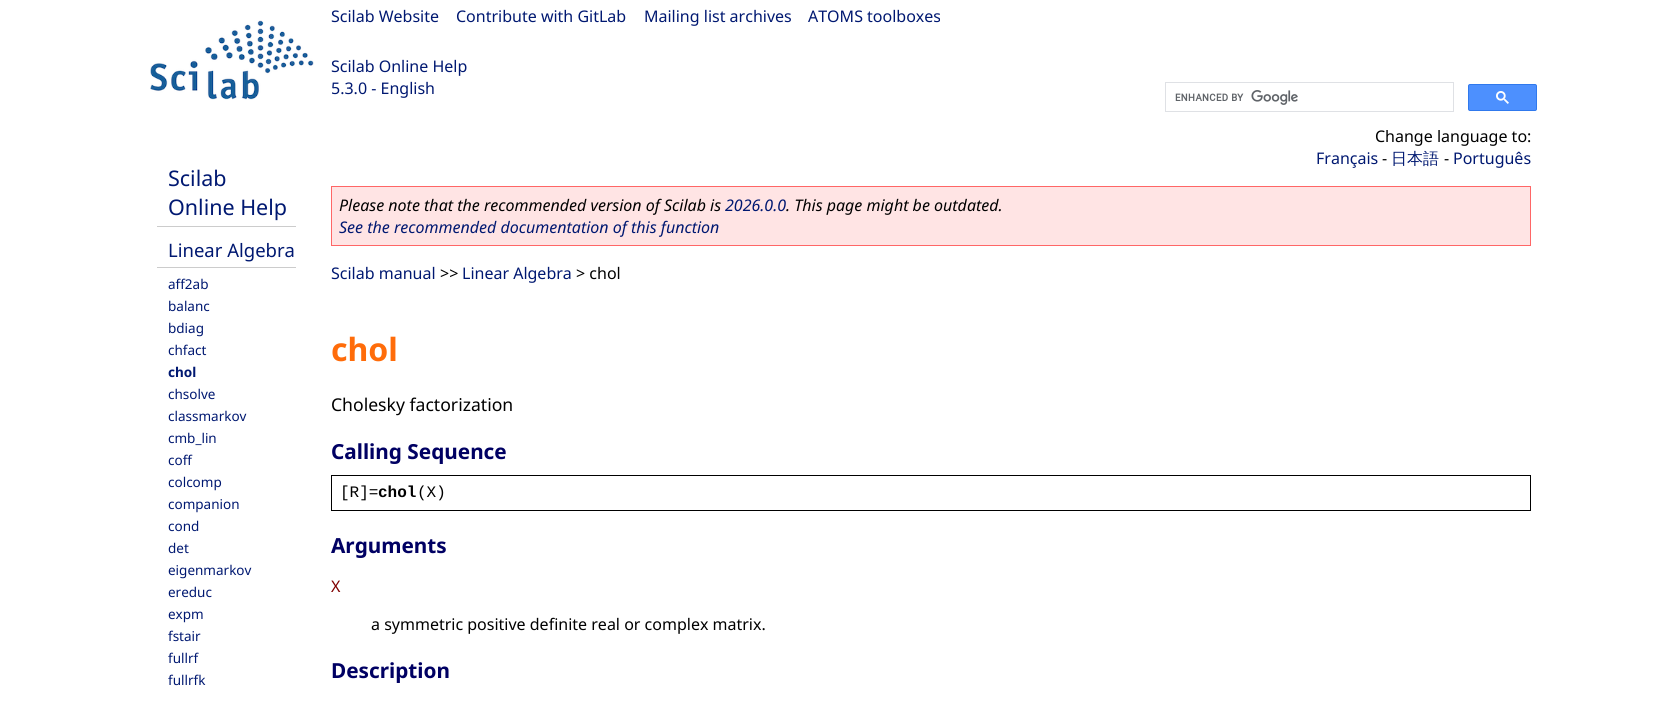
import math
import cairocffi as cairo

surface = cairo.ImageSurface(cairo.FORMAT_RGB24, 1662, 703)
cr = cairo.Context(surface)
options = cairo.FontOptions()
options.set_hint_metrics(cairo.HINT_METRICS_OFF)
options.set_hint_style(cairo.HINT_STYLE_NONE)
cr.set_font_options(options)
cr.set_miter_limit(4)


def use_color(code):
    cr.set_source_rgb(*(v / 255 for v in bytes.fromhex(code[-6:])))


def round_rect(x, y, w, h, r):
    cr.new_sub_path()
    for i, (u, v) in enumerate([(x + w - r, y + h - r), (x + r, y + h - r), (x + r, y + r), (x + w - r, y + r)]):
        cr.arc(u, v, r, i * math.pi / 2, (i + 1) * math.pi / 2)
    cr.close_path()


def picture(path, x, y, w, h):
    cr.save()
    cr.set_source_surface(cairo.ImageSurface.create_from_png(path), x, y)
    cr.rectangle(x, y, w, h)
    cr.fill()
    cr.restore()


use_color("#ffffff")
cr.paint()
picture("img1.png", 150, 20, 164, 80)
cr.select_font_face("Noto Sans")
cr.set_font_size(16)
use_color("#001871")
cr.move_to(331, 22)
cr.show_text("Scilab Website")
cr.move_to(456, 22)
cr.show_text("Contribute with GitLab")
cr.move_to(644, 22)
cr.show_text("Mailing list archives")
cr.move_to(808, 22)
cr.show_text("ATOMS toolboxes")
cr.move_to(331, 72)
cr.show_text("Scilab Online Help")
cr.move_to(331, 94)
cr.show_text("5.3.0 - English")
use_color("#000000")
cr.move_to(1375, 142)
cr.show_text("Change language to:")
use_color("#ffffff")
cr.rectangle(1386, 129, 54, 1)
cr.fill()
cr.rectangle(1165.5, 82.5, 288, 29)
use_color("#dfe1e5")
cr.set_line_width(1)
cr.stroke()
picture("img2.png", 1175, 90, 123, 15)
use_color("#4d90fe")
round_rect(1468.5, 84.5, 68, 26, 1.5)
cr.fill_preserve()
use_color("#3079ed")
cr.stroke()
picture("img3.png", 1496, 91, 13, 13)
use_color("#cccccc")
cr.rectangle(157, 226, 139, 1)
cr.fill()
cr.set_font_size(21.5)
use_color("#001871")
cr.move_to(168, 186)
cr.show_text("Scilab")
cr.move_to(168, 215)
cr.show_text("Online Help")
use_color("#cccccc")
cr.rectangle(157, 267, 139, 1)
cr.fill()
cr.set_font_size(18.5)
use_color("#001871")
cr.move_to(168, 257)
cr.show_text("Linear Algebra")
cr.set_font_size(13.5)
cr.move_to(168, 289)
cr.show_text("aff2ab")
cr.move_to(168, 311)
cr.show_text("balanc")
cr.move_to(168, 333)
cr.show_text("bdiag")
cr.move_to(168, 355)
cr.show_text("chfact")
cr.select_font_face("Noto Sans", cairo.FONT_SLANT_NORMAL, cairo.FONT_WEIGHT_BOLD)
cr.move_to(168, 377)
cr.show_text("chol")
cr.select_font_face("Noto Sans")
cr.move_to(168, 399)
cr.show_text("chsolve")
cr.move_to(168, 421)
cr.show_text("classmarkov")
cr.move_to(168, 443)
cr.show_text("cmb_lin")
cr.move_to(168, 465)
cr.show_text("coff")
cr.move_to(168, 487)
cr.show_text("colcomp")
cr.move_to(168, 509)
cr.show_text("companion")
cr.move_to(168, 531)
cr.show_text("cond")
cr.move_to(168, 553)
cr.show_text("det")
cr.move_to(168, 575)
cr.show_text("eigenmarkov")
cr.move_to(168, 597)
cr.show_text("ereduc")
cr.move_to(168, 619)
cr.show_text("expm")
cr.move_to(168, 641)
cr.show_text("fstair")
cr.move_to(168, 663)
cr.show_text("fullrf")
cr.move_to(168, 685)
cr.show_text("fullrfk")
cr.set_font_size(16)
cr.move_to(1316, 164)
cr.show_text("Français")
use_color("#000000")
cr.move_to(1382, 164)
cr.show_text("-")
cr.select_font_face("WenQuanYi Zen Hei Medium")
use_color("#001871")
cr.move_to(1391, 164)
cr.show_text("日本語")
cr.select_font_face("Noto Sans")
use_color("#000000")
cr.move_to(1444, 164)
cr.show_text("-")
use_color("#001871")
cr.move_to(1453, 164)
cr.show_text("Português")
use_color("#ffe4e4")
cr.rectangle(331.5, 186.5, 1199, 59)
cr.fill_preserve()
use_color("#ff6666")
cr.stroke()
cr.select_font_face("Noto Sans", cairo.FONT_SLANT_ITALIC)
use_color("#000000")
cr.move_to(339, 211)
cr.show_text("Please note that the recommended version of Scilab is")
use_color("#001871")
cr.move_to(725, 211)
cr.show_text("2026.0.0")
use_color("#000000")
cr.move_to(786, 211)
cr.show_text(". This page might be outdated.")
use_color("#001871")
cr.move_to(339, 233)
cr.show_text("See the recommended documentation of this function")
cr.select_font_face("Noto Sans")
cr.move_to(331, 279)
cr.show_text("Scilab manual")
use_color("#000000")
cr.move_to(440, 279)
cr.show_text(">>")
use_color("#001871")
cr.move_to(462, 279)
cr.show_text("Linear Algebra")
use_color("#000000")
cr.move_to(576, 279)
cr.show_text("> chol")
cr.select_font_face("Noto Sans", cairo.FONT_SLANT_NORMAL, cairo.FONT_WEIGHT_BOLD)
cr.set_font_size(32)
use_color("#ff6c0a")
cr.move_to(331, 361)
cr.show_text("chol")
cr.select_font_face("Noto Sans")
cr.set_font_size(17.6)
use_color("#000000")
cr.move_to(331, 411)
cr.show_text("Cholesky factorization")
cr.select_font_face("Noto Sans", cairo.FONT_SLANT_NORMAL, cairo.FONT_WEIGHT_BOLD)
cr.set_font_size(20.75)
use_color("#000063")
cr.move_to(331, 459)
cr.show_text("Calling Sequence")
cr.rectangle(331.5, 475.5, 1199, 35)
use_color("#000000")
cr.stroke()
cr.select_font_face("Liberation Mono")
cr.set_font_size(16)
cr.move_to(340, 497)
cr.show_text("[R]=")
cr.select_font_face("Liberation Mono", cairo.FONT_SLANT_NORMAL, cairo.FONT_WEIGHT_BOLD)
cr.move_to(378, 497)
cr.show_text("chol")
cr.select_font_face("Liberation Mono")
cr.move_to(417, 497)
cr.show_text("(X)")
cr.select_font_face("Noto Sans", cairo.FONT_SLANT_NORMAL, cairo.FONT_WEIGHT_BOLD)
cr.set_font_size(20.75)
use_color("#000063")
cr.move_to(331, 553)
cr.show_text("Arguments")
cr.select_font_face("Noto Sans")
cr.set_font_size(16)
use_color("#800000")
cr.move_to(331, 592)
cr.show_text("X")
use_color("#000000")
cr.move_to(371, 630)
cr.show_text("a symmetric positive definite real or complex matrix.")
cr.select_font_face("Noto Sans", cairo.FONT_SLANT_NORMAL, cairo.FONT_WEIGHT_BOLD)
cr.set_font_size(20.75)
use_color("#000063")
cr.move_to(331, 678)
cr.show_text("Description")
surface.write_to_png("result.png")
